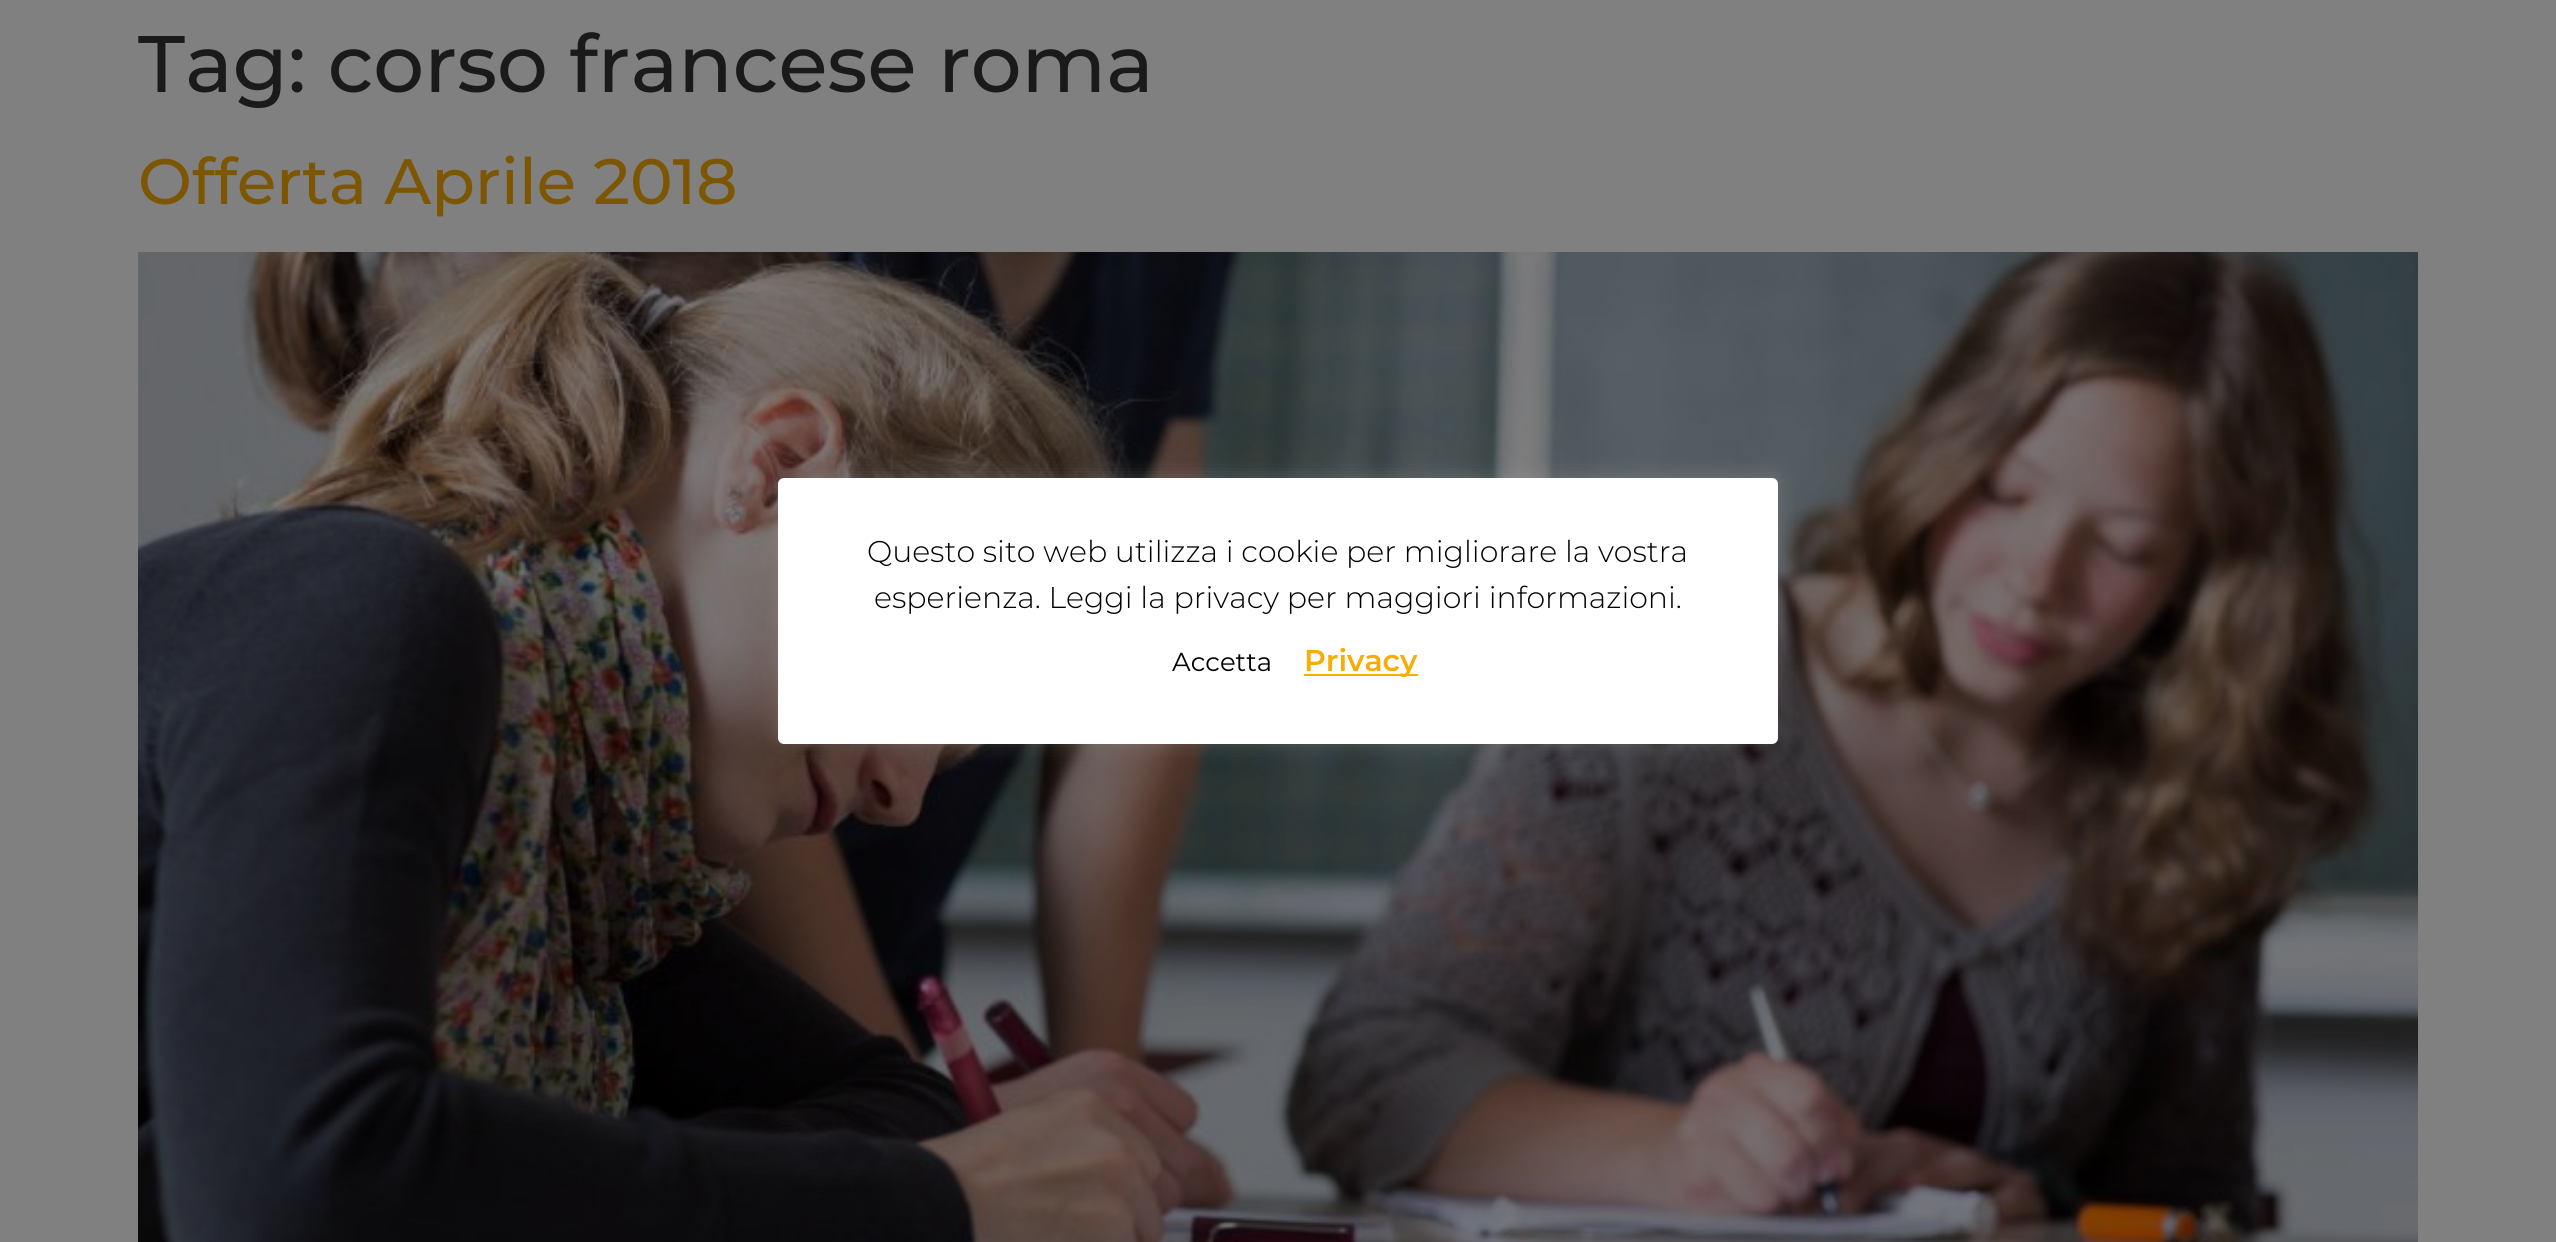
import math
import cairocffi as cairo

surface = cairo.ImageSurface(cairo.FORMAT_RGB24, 2556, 1242)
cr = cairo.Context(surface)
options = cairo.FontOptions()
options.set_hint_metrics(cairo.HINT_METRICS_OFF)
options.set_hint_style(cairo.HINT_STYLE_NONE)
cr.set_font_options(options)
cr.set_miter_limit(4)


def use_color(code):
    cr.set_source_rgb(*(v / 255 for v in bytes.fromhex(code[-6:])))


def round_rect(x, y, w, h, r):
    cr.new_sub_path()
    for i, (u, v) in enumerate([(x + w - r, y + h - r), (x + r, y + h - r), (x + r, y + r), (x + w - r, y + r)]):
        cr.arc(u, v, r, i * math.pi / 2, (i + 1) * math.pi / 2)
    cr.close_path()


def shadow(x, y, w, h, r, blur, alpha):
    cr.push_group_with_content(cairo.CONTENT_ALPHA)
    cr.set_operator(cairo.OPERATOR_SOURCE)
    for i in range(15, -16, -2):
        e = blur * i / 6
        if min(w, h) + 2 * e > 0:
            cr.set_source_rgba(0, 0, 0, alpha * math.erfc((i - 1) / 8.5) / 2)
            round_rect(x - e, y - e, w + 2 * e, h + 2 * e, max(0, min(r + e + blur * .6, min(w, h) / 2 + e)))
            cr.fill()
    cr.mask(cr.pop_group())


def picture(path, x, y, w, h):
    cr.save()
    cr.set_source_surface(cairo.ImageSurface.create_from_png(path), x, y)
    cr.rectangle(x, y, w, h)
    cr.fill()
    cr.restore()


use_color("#808080")
cr.paint()
cr.select_font_face("Montserrat Medium")
cr.set_font_size(80)
use_color("#1a1a1a")
cr.move_to(138, 92)
cr.show_text("Tag: corso francese roma")
cr.set_font_size(64)
use_color("#7c5602")
cr.move_to(138, 204)
cr.show_text("Offerta Aprile 2018")
picture("img1.png", 138, 252, 2280, 990)
use_color("#acabab")
shadow(778, 476, 1000, 266, 6, 10, 0.3)
use_color("#ffffff")
round_rect(778, 478, 1000, 266, 6)
cr.fill()
cr.select_font_face("Montserrat Light")
cr.set_font_size(30)
use_color("#000000")
cr.move_to(867, 562)
cr.show_text("Questo sito web utilizza i cookie per migliorare la vostra")
cr.move_to(874, 608)
cr.show_text("esperienza. Leggi la privacy per maggiori informazioni.")
cr.select_font_face("Montserrat")
cr.set_font_size(26)
cr.move_to(1172, 671)
cr.show_text("Accetta")
use_color("#f8ac04")
cr.rectangle(1304, 674, 114, 2)
cr.fill()
cr.select_font_face("Montserrat SemiBold")
cr.set_font_size(30)
cr.move_to(1304, 671)
cr.show_text("Privacy")
surface.write_to_png("result.png")
